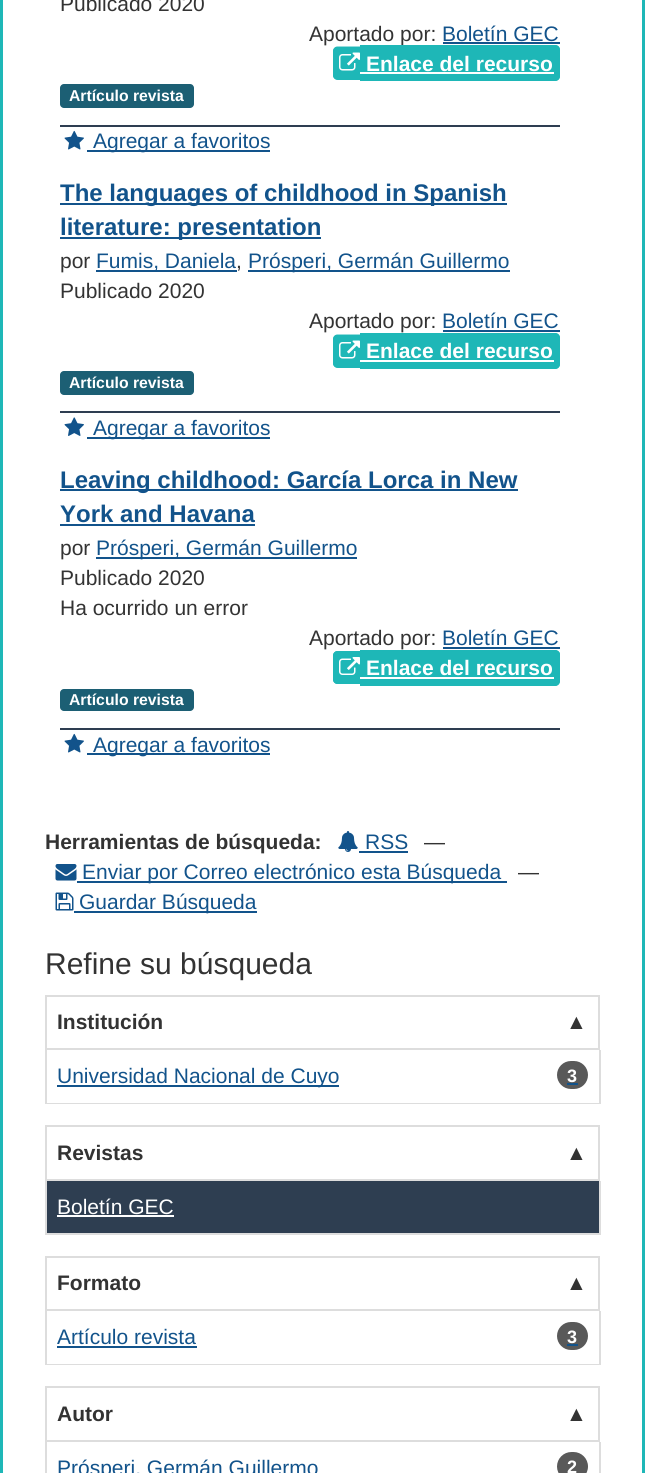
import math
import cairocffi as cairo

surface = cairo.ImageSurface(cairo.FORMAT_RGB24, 645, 1473)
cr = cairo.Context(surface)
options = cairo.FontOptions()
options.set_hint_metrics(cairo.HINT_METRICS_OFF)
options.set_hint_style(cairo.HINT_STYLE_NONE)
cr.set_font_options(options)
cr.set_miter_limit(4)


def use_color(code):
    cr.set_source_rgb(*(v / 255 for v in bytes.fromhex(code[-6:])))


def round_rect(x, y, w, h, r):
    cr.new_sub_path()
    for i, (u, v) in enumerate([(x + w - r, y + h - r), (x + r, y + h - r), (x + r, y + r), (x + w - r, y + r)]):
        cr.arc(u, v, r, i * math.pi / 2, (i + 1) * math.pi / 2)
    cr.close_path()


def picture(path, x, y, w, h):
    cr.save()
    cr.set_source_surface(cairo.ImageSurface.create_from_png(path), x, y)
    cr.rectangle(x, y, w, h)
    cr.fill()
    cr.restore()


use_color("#ffffff")
cr.paint()
use_color("#1eb7b7")
cr.rectangle(642, 0, 3, 1473)
cr.fill()
cr.rectangle(0, 0, 3, 1473)
cr.fill()
use_color("#2e3e51")
cr.rectangle(60, 125, 500, 2)
cr.fill()
cr.select_font_face("Liberation Sans")
cr.set_font_size(21)
use_color("#333333")
cr.move_to(60, 11)
cr.show_text("Publicado 2020")
cr.move_to(309, 41)
cr.show_text("Aportado por:")
use_color("#12538b")
cr.move_to(442, 41)
cr.show_text("Boletín GEC")
cr.rectangle(443, 42, 117, 2)
cr.fill()
use_color("#1eb7b7")
cr.new_path()
cr.move_to(338, 47)
cr.line_to(360, 47)
cr.line_to(360, 80)
cr.line_to(338, 80)
cr.curve_to(335, 80, 333, 78, 333, 75)
cr.line_to(333, 52)
cr.curve_to(333, 49, 335, 47, 338, 47)
cr.close_path()
cr.fill()
cr.set_fill_rule(cairo.FILL_RULE_EVEN_ODD)
cr.new_path()
cr.move_to(337.5, 46.5)
cr.line_to(360, 46.5)
cr.line_to(360, 79.5)
cr.line_to(337.5, 79.5)
cr.curve_to(335, 79.5, 333, 77.5, 333, 75)
cr.line_to(333, 51)
cr.curve_to(333, 48.5, 335, 46.5, 337.5, 46.5)
cr.close_path()
cr.move_to(337.5, 49.5)
cr.line_to(360, 49.5)
cr.line_to(360, 76.5)
cr.line_to(337.5, 76.5)
cr.curve_to(336.5, 76.5, 336, 76, 336, 75)
cr.line_to(336, 51)
cr.curve_to(336, 50, 336.5, 49.5, 337.5, 49.5)
cr.close_path()
cr.fill()
cr.new_path()
cr.move_to(360, 45)
cr.line_to(555, 45)
cr.curve_to(558, 45, 560, 47, 560, 50)
cr.line_to(560, 76)
cr.curve_to(560, 79, 558, 81, 555, 81)
cr.line_to(360, 81)
cr.close_path()
cr.fill()
cr.new_path()
cr.move_to(360, 45)
cr.line_to(555, 45)
cr.curve_to(557, 45, 560, 47, 560, 50)
cr.line_to(560, 76)
cr.curve_to(560, 79, 557, 81, 555, 81)
cr.line_to(360, 81)
cr.close_path()
cr.move_to(360, 48)
cr.line_to(555, 48)
cr.curve_to(556, 48, 556, 49, 556, 50)
cr.line_to(556, 76)
cr.curve_to(556, 77, 556, 78, 555, 78)
cr.line_to(360, 78)
cr.close_path()
cr.fill()
picture("img1.png", 339, 52, 21, 19)
cr.select_font_face("Liberation Sans", cairo.FONT_SLANT_NORMAL, cairo.FONT_WEIGHT_BOLD)
use_color("#ffffff")
cr.move_to(366, 71)
cr.show_text("Enlace del recurso")
cr.rectangle(360, 72, 194, 2)
cr.fill()
use_color("#1c5f74")
round_rect(60, 84, 134, 24, 4)
cr.fill()
cr.set_font_size(15.75)
use_color("#ffffff")
cr.move_to(69, 101)
cr.show_text("Artículo revista")
picture("img2.png", 64, 130, 20, 20)
use_color("#12538b")
cr.rectangle(87, 150, 183, 2)
cr.fill()
cr.select_font_face("Liberation Sans")
cr.set_font_size(21)
cr.move_to(93, 148)
cr.show_text("Agregar a favoritos")
use_color("#2e3e51")
cr.rectangle(60, 411, 500, 2)
cr.fill()
use_color("#12538b")
cr.rectangle(60, 203, 447, 2)
cr.fill()
cr.select_font_face("Liberation Sans", cairo.FONT_SLANT_NORMAL, cairo.FONT_WEIGHT_BOLD)
cr.set_font_size(24)
cr.move_to(60, 201)
cr.show_text("The languages of childhood in Spanish")
cr.rectangle(60, 237, 261, 2)
cr.fill()
cr.move_to(60, 235)
cr.show_text("literature: presentation")
cr.select_font_face("Liberation Sans")
cr.set_font_size(21)
use_color("#333333")
cr.move_to(60, 268)
cr.show_text("por")
use_color("#12538b")
cr.rectangle(96, 270, 141, 2)
cr.fill()
cr.move_to(96, 268)
cr.show_text("Fumis, Daniela")
use_color("#333333")
cr.move_to(236, 268)
cr.show_text(",")
use_color("#12538b")
cr.rectangle(248, 270, 262, 2)
cr.fill()
cr.move_to(248, 268)
cr.show_text("Prósperi, Germán Guillermo")
use_color("#333333")
cr.move_to(60, 298)
cr.show_text("Publicado 2020")
cr.move_to(309, 328)
cr.show_text("Aportado por:")
use_color("#12538b")
cr.move_to(442, 328)
cr.show_text("Boletín GEC")
cr.rectangle(443, 330, 117, 2)
cr.fill()
use_color("#1eb7b7")
cr.new_path()
cr.move_to(338, 335)
cr.line_to(360, 335)
cr.line_to(360, 368)
cr.line_to(338, 368)
cr.curve_to(335, 368, 333, 366, 333, 363)
cr.line_to(333, 340)
cr.curve_to(333, 337, 335, 335, 338, 335)
cr.close_path()
cr.fill()
cr.new_path()
cr.move_to(337.5, 334.5)
cr.line_to(360, 334.5)
cr.line_to(360, 367.5)
cr.line_to(337.5, 367.5)
cr.curve_to(335, 367.5, 333, 365.5, 333, 363)
cr.line_to(333, 339)
cr.curve_to(333, 336.5, 335, 334.5, 337.5, 334.5)
cr.close_path()
cr.move_to(337.5, 337.5)
cr.line_to(360, 337.5)
cr.line_to(360, 364.5)
cr.line_to(337.5, 364.5)
cr.curve_to(336.5, 364.5, 336, 364, 336, 363)
cr.line_to(336, 339)
cr.curve_to(336, 338, 336.5, 337.5, 337.5, 337.5)
cr.close_path()
cr.fill()
cr.new_path()
cr.move_to(360, 333)
cr.line_to(555, 333)
cr.curve_to(558, 333, 560, 335, 560, 338)
cr.line_to(560, 364)
cr.curve_to(560, 367, 558, 369, 555, 369)
cr.line_to(360, 369)
cr.close_path()
cr.fill()
cr.new_path()
cr.move_to(360, 333)
cr.line_to(555, 333)
cr.curve_to(557, 333, 560, 335, 560, 338)
cr.line_to(560, 364)
cr.curve_to(560, 367, 557, 369, 555, 369)
cr.line_to(360, 369)
cr.close_path()
cr.move_to(360, 336)
cr.line_to(555, 336)
cr.curve_to(556, 336, 556, 337, 556, 338)
cr.line_to(556, 364)
cr.curve_to(556, 365, 556, 366, 555, 366)
cr.line_to(360, 366)
cr.close_path()
cr.fill()
picture("img1.png", 339, 340, 21, 19)
cr.select_font_face("Liberation Sans", cairo.FONT_SLANT_NORMAL, cairo.FONT_WEIGHT_BOLD)
use_color("#ffffff")
cr.move_to(366, 358)
cr.show_text("Enlace del recurso")
cr.rectangle(360, 360, 194, 2)
cr.fill()
use_color("#1c5f74")
round_rect(60, 371, 134, 24, 4)
cr.fill()
cr.set_font_size(15.75)
use_color("#ffffff")
cr.move_to(69, 388)
cr.show_text("Artículo revista")
picture("img3.png", 64, 417, 20, 19)
use_color("#12538b")
cr.rectangle(87, 437, 183, 2)
cr.fill()
cr.select_font_face("Liberation Sans")
cr.set_font_size(21)
cr.move_to(93, 435)
cr.show_text("Agregar a favoritos")
use_color("#2e3e51")
cr.rectangle(60, 728, 500, 2)
cr.fill()
use_color("#12538b")
cr.rectangle(60, 489, 458, 2)
cr.fill()
cr.select_font_face("Liberation Sans", cairo.FONT_SLANT_NORMAL, cairo.FONT_WEIGHT_BOLD)
cr.set_font_size(24)
cr.move_to(60, 488)
cr.show_text("Leaving childhood: García Lorca in New")
cr.move_to(60, 522)
cr.show_text("York and Havana")
cr.rectangle(60, 524, 195, 2)
cr.fill()
cr.select_font_face("Liberation Sans")
cr.set_font_size(21)
use_color("#333333")
cr.move_to(60, 555)
cr.show_text("por")
use_color("#12538b")
cr.rectangle(96, 557, 261, 2)
cr.fill()
cr.move_to(96, 555)
cr.show_text("Prósperi, Germán Guillermo")
use_color("#333333")
cr.move_to(60, 585)
cr.show_text("Publicado 2020")
cr.move_to(60, 615)
cr.show_text("Ha ocurrido un error")
cr.move_to(309, 645)
cr.show_text("Aportado por:")
use_color("#12538b")
cr.move_to(442, 645)
cr.show_text("Boletín GEC")
cr.rectangle(443, 647, 117, 2)
cr.fill()
use_color("#1eb7b7")
cr.new_path()
cr.move_to(338, 651)
cr.line_to(360, 651)
cr.line_to(360, 684)
cr.line_to(338, 684)
cr.curve_to(335, 684, 333, 682, 333, 679)
cr.line_to(333, 656)
cr.curve_to(333, 653, 335, 651, 338, 651)
cr.close_path()
cr.fill()
cr.new_path()
cr.move_to(337.5, 651)
cr.line_to(360, 651)
cr.line_to(360, 684)
cr.line_to(337.5, 684)
cr.curve_to(335, 684, 333, 682, 333, 679.5)
cr.line_to(333, 655.5)
cr.curve_to(333, 653, 335, 651, 337.5, 651)
cr.close_path()
cr.move_to(337.5, 654)
cr.line_to(360, 654)
cr.line_to(360, 681)
cr.line_to(337.5, 681)
cr.curve_to(336.5, 681, 336, 680.5, 336, 679.5)
cr.line_to(336, 655.5)
cr.curve_to(336, 654.5, 336.5, 654, 337.5, 654)
cr.close_path()
cr.fill()
cr.new_path()
cr.move_to(360, 650)
cr.line_to(555, 650)
cr.curve_to(558, 650, 560, 652, 560, 655)
cr.line_to(560, 681)
cr.curve_to(560, 684, 558, 686, 555, 686)
cr.line_to(360, 686)
cr.close_path()
cr.fill()
cr.new_path()
cr.move_to(360, 650)
cr.line_to(555, 650)
cr.curve_to(557, 650, 560, 652, 560, 654)
cr.line_to(560, 681)
cr.curve_to(560, 683, 557, 686, 555, 686)
cr.line_to(360, 686)
cr.close_path()
cr.move_to(360, 652)
cr.line_to(555, 652)
cr.curve_to(556, 652, 556, 653, 556, 654)
cr.line_to(556, 681)
cr.curve_to(556, 682, 556, 682, 555, 682)
cr.line_to(360, 682)
cr.close_path()
cr.fill()
picture("img4.png", 339, 657, 21, 18)
cr.select_font_face("Liberation Sans", cairo.FONT_SLANT_NORMAL, cairo.FONT_WEIGHT_BOLD)
use_color("#ffffff")
cr.move_to(366, 675)
cr.show_text("Enlace del recurso")
cr.rectangle(360, 677, 194, 2)
cr.fill()
use_color("#1c5f74")
round_rect(60, 689, 134, 22, 4)
cr.fill()
cr.set_font_size(15.75)
use_color("#ffffff")
cr.move_to(69, 705)
cr.show_text("Artículo revista")
picture("img2.png", 64, 733, 20, 20)
use_color("#12538b")
cr.rectangle(87, 753, 183, 2)
cr.fill()
cr.select_font_face("Liberation Sans")
cr.set_font_size(21)
cr.move_to(93, 752)
cr.show_text("Agregar a favoritos")
cr.select_font_face("Liberation Sans", cairo.FONT_SLANT_NORMAL, cairo.FONT_WEIGHT_BOLD)
use_color("#333333")
cr.move_to(45, 849)
cr.show_text("Herramientas de búsqueda:")
picture("img5.png", 338, 831, 20, 21)
cr.select_font_face("Liberation Sans")
use_color("#12538b")
cr.move_to(365, 849)
cr.show_text("RSS")
cr.rectangle(359, 851, 49, 2)
cr.fill()
use_color("#333333")
cr.move_to(424, 849)
cr.show_text("—")
picture("img6.png", 55, 864, 22, 17)
use_color("#12538b")
cr.rectangle(77, 881, 430, 2)
cr.fill()
cr.move_to(82, 879)
cr.show_text("Enviar por Correo electrónico esta Búsqueda")
use_color("#333333")
cr.move_to(518, 879)
cr.show_text("—")
picture("img7.png", 55, 892, 19, 19)
use_color("#12538b")
cr.rectangle(74, 911, 183, 2)
cr.fill()
cr.move_to(79, 909)
cr.show_text("Guardar Búsqueda")
cr.set_font_size(30)
use_color("#333333")
cr.move_to(45, 974)
cr.show_text("Refine su búsqueda")
cr.rectangle(46, 996, 553, 53)
use_color("#dddddd")
cr.stroke()
cr.select_font_face("Liberation Sans", cairo.FONT_SLANT_NORMAL, cairo.FONT_WEIGHT_BOLD)
cr.set_font_size(21)
use_color("#333333")
cr.move_to(57, 1029)
cr.show_text("Institución")
cr.move_to(566, 1029)
cr.show_text("▲")
use_color("#dddddd")
cr.rectangle(599, 1050, 2, 54)
cr.fill()
cr.rectangle(45, 1050, 2, 54)
cr.fill()
cr.rectangle(47, 1103, 552, 1)
cr.fill()
use_color("#12538b")
cr.rectangle(57, 1085, 282, 2)
cr.fill()
cr.select_font_face("Liberation Sans")
cr.move_to(57, 1083)
cr.show_text("Universidad Nacional de Cuyo")
use_color("#595959")
round_rect(557, 1061, 31, 28, 14)
cr.fill()
cr.select_font_face("Liberation Sans", cairo.FONT_SLANT_NORMAL, cairo.FONT_WEIGHT_BOLD)
cr.set_font_size(18)
use_color("#ffffff")
cr.move_to(567, 1082)
cr.show_text("3")
use_color("#12538b")
cr.rectangle(567, 1083, 11, 2)
cr.fill()
cr.rectangle(46, 1126, 553, 54)
use_color("#dddddd")
cr.stroke()
cr.set_font_size(21)
use_color("#333333")
cr.move_to(57, 1160)
cr.show_text("Revistas")
cr.move_to(566, 1160)
cr.show_text("▲")
use_color("#dddddd")
cr.rectangle(599, 1181, 2, 54)
cr.fill()
cr.rectangle(45, 1181, 2, 54)
cr.fill()
use_color("#2e3e51")
cr.rectangle(47, 1181, 552, 52)
cr.fill()
use_color("#dddddd")
cr.rectangle(47, 1233, 552, 2)
cr.fill()
cr.select_font_face("Liberation Sans")
use_color("#ffffff")
cr.move_to(57, 1214)
cr.show_text("Boletín GEC")
cr.rectangle(57, 1215, 117, 2)
cr.fill()
cr.rectangle(46, 1257, 553, 53)
use_color("#dddddd")
cr.stroke()
cr.select_font_face("Liberation Sans", cairo.FONT_SLANT_NORMAL, cairo.FONT_WEIGHT_BOLD)
use_color("#333333")
cr.move_to(57, 1290)
cr.show_text("Formato")
cr.move_to(566, 1290)
cr.show_text("▲")
use_color("#dddddd")
cr.rectangle(599, 1311, 2, 54)
cr.fill()
cr.rectangle(45, 1311, 2, 54)
cr.fill()
cr.rectangle(47, 1364, 552, 1)
cr.fill()
cr.select_font_face("Liberation Sans")
use_color("#12538b")
cr.move_to(57, 1344)
cr.show_text("Artículo revista")
cr.rectangle(57, 1346, 140, 2)
cr.fill()
use_color("#595959")
round_rect(557, 1322, 31, 28, 14)
cr.fill()
cr.select_font_face("Liberation Sans", cairo.FONT_SLANT_NORMAL, cairo.FONT_WEIGHT_BOLD)
cr.set_font_size(18)
use_color("#ffffff")
cr.move_to(567, 1343)
cr.show_text("3")
use_color("#12538b")
cr.rectangle(567, 1344, 11, 2)
cr.fill()
cr.rectangle(46, 1387, 553, 54)
use_color("#dddddd")
cr.stroke()
cr.set_font_size(21)
use_color("#333333")
cr.move_to(57, 1421)
cr.show_text("Autor")
cr.move_to(566, 1421)
cr.show_text("▲")
use_color("#dddddd")
cr.rectangle(599, 1442, 2, 31)
cr.fill()
cr.rectangle(45, 1442, 2, 31)
cr.fill()
cr.select_font_face("Liberation Sans")
use_color("#12538b")
cr.move_to(57, 1475)
cr.show_text("Prósperi, Germán Guillermo")
use_color("#595959")
round_rect(557, 1452, 31, 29, 14.5)
cr.fill()
cr.select_font_face("Liberation Sans", cairo.FONT_SLANT_NORMAL, cairo.FONT_WEIGHT_BOLD)
cr.set_font_size(18)
use_color("#ffffff")
cr.move_to(567, 1473)
cr.show_text("2")
surface.write_to_png("result.png")
